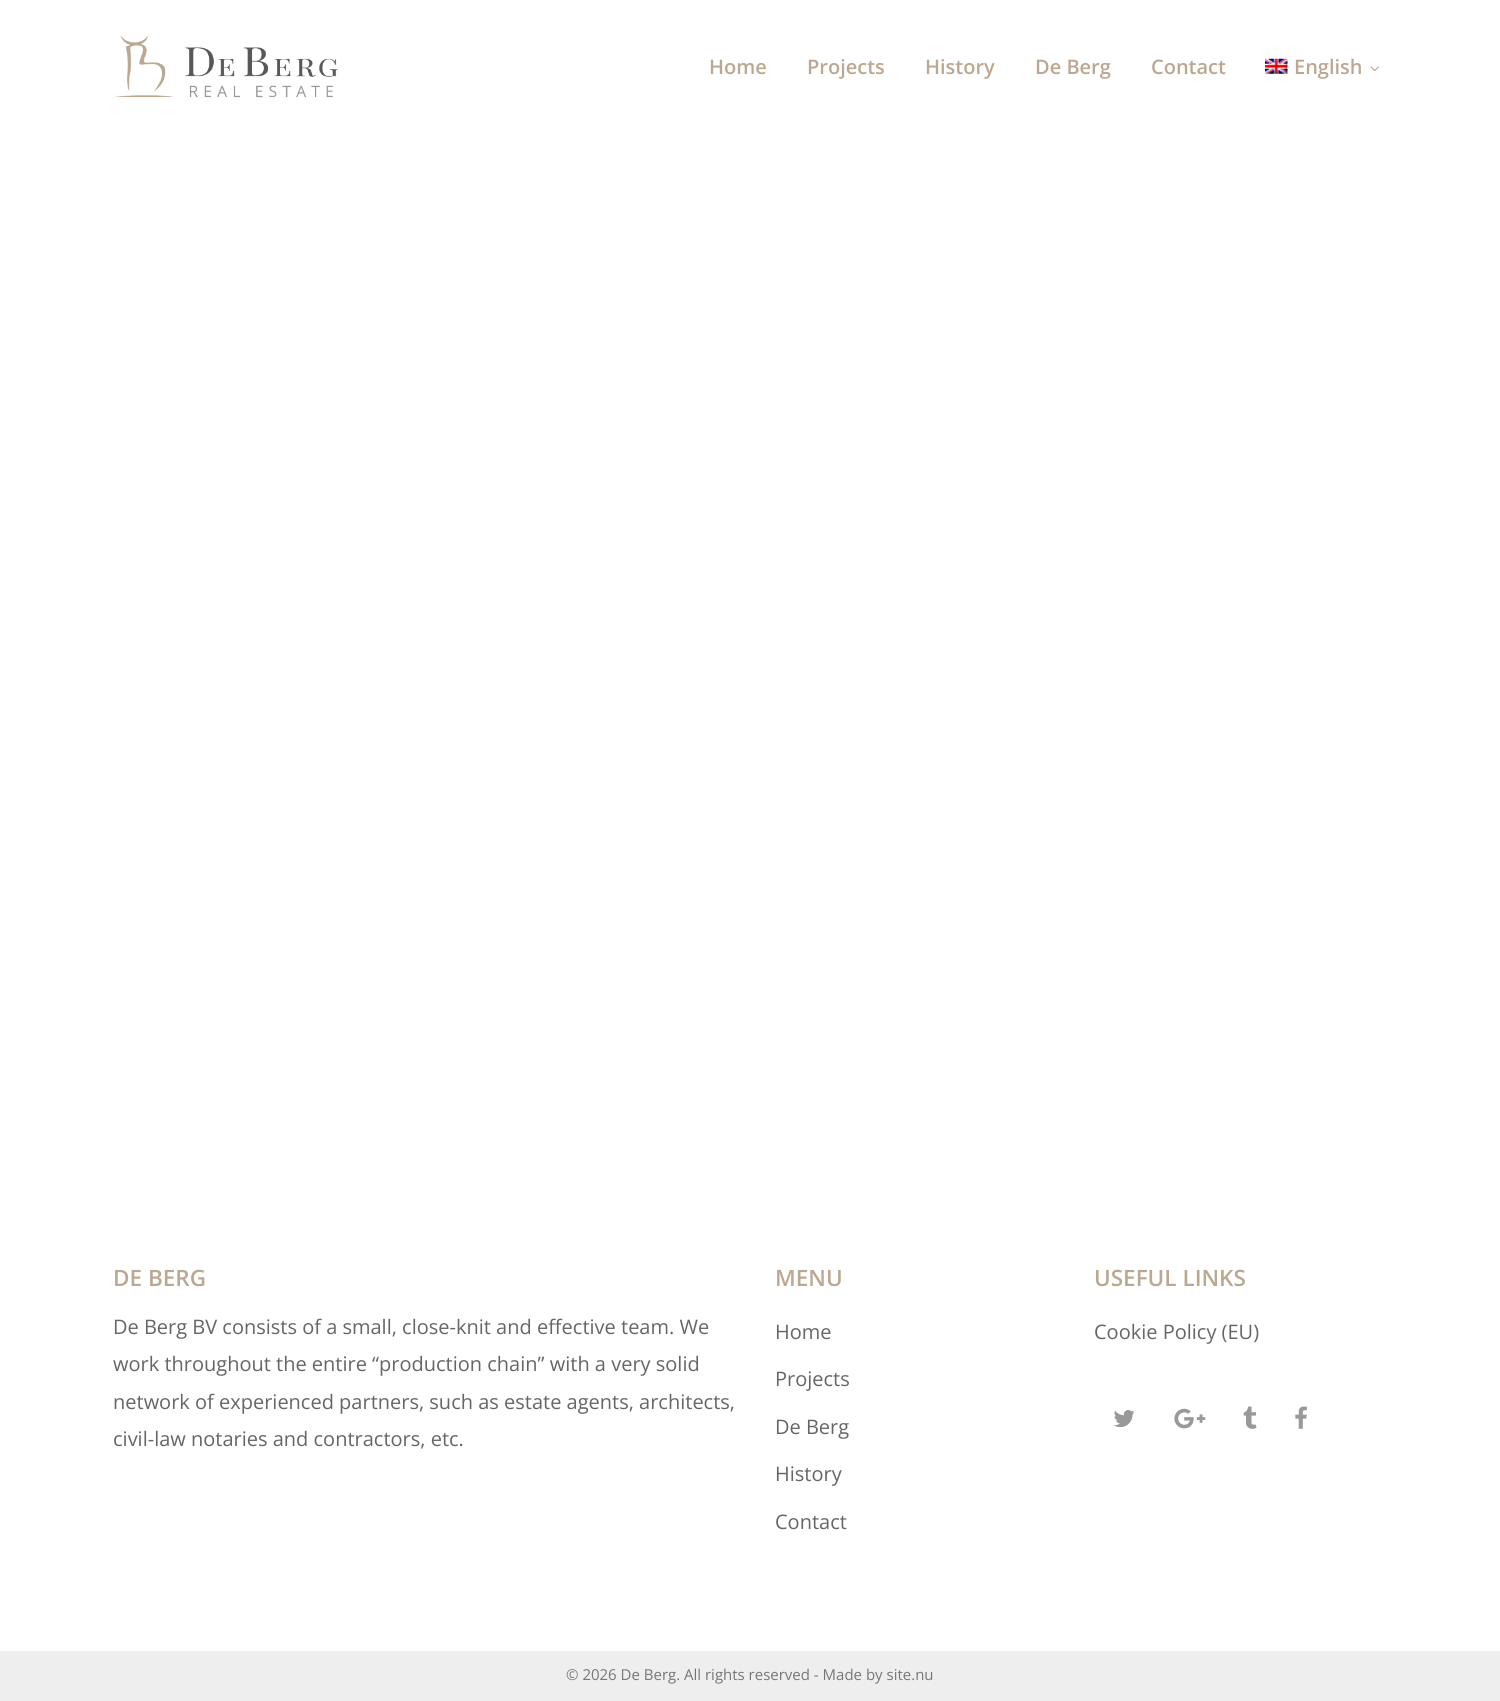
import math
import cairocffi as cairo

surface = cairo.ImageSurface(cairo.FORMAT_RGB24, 1500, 1701)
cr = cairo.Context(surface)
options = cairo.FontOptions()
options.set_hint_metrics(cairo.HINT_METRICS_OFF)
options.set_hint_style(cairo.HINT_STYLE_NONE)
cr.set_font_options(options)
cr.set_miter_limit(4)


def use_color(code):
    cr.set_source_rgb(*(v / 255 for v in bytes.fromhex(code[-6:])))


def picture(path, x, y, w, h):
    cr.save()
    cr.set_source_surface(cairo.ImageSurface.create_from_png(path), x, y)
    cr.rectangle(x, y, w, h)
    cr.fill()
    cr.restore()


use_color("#ffffff")
cr.paint()
picture("img1.png", 114, 35, 224, 63)
cr.select_font_face("Open Sans SemiBold")
cr.set_font_size(20)
use_color("#bba892")
cr.move_to(709, 74)
cr.show_text("Home")
cr.move_to(807, 74)
cr.show_text("Projects")
cr.move_to(925, 74)
cr.show_text("History")
cr.move_to(1035, 74)
cr.show_text("De Berg")
cr.move_to(1151, 74)
cr.show_text("Contact")
picture("img2.png", 1265, 58, 23, 16)
cr.move_to(1294, 74)
cr.show_text("English")
picture("img3.png", 1370, 66, 9, 6)
cr.set_font_size(22.5)
cr.move_to(113, 1286)
cr.show_text("DE BERG")
cr.select_font_face("Open Sans")
cr.set_font_size(20)
use_color("#666666")
cr.move_to(113, 1334)
cr.show_text("De Berg BV consists of a small, close-knit and effective team. We")
cr.move_to(113, 1371)
cr.show_text("work throughout the entire “production chain” with a very solid")
cr.move_to(113, 1409)
cr.show_text("network of experienced partners, such as estate agents, architects,")
cr.move_to(113, 1446)
cr.show_text("civil-law notaries and contractors, etc.")
cr.select_font_face("Open Sans SemiBold")
cr.set_font_size(22.5)
use_color("#bba892")
cr.move_to(775, 1286)
cr.show_text("MENU")
cr.select_font_face("Open Sans")
cr.set_font_size(20)
use_color("#666666")
cr.move_to(775, 1339)
cr.show_text("Home")
cr.move_to(775, 1386)
cr.show_text("Projects")
cr.move_to(775, 1434)
cr.show_text("De Berg")
cr.move_to(775, 1481)
cr.show_text("History")
cr.move_to(775, 1529)
cr.show_text("Contact")
cr.select_font_face("Open Sans SemiBold")
cr.set_font_size(22.5)
use_color("#bba892")
cr.move_to(1094, 1286)
cr.show_text("USEFUL LINKS")
cr.select_font_face("Open Sans")
cr.set_font_size(20)
use_color("#666666")
cr.move_to(1094, 1339)
cr.show_text("Cookie Policy (EU)")
picture("img4.png", 1113, 1410, 22, 18)
picture("img5.png", 1174, 1408, 32, 21)
picture("img6.png", 1243, 1406, 14, 23)
picture("img7.png", 1295, 1406, 12, 23)
use_color("#eeeeee")
cr.rectangle(0, 1651, 1500, 50)
cr.fill()
cr.set_font_size(15)
use_color("#777777")
cr.move_to(566, 1680)
cr.show_text("© 2026 De Berg. All rights reserved - Made by site.nu")
surface.write_to_png("result.png")
